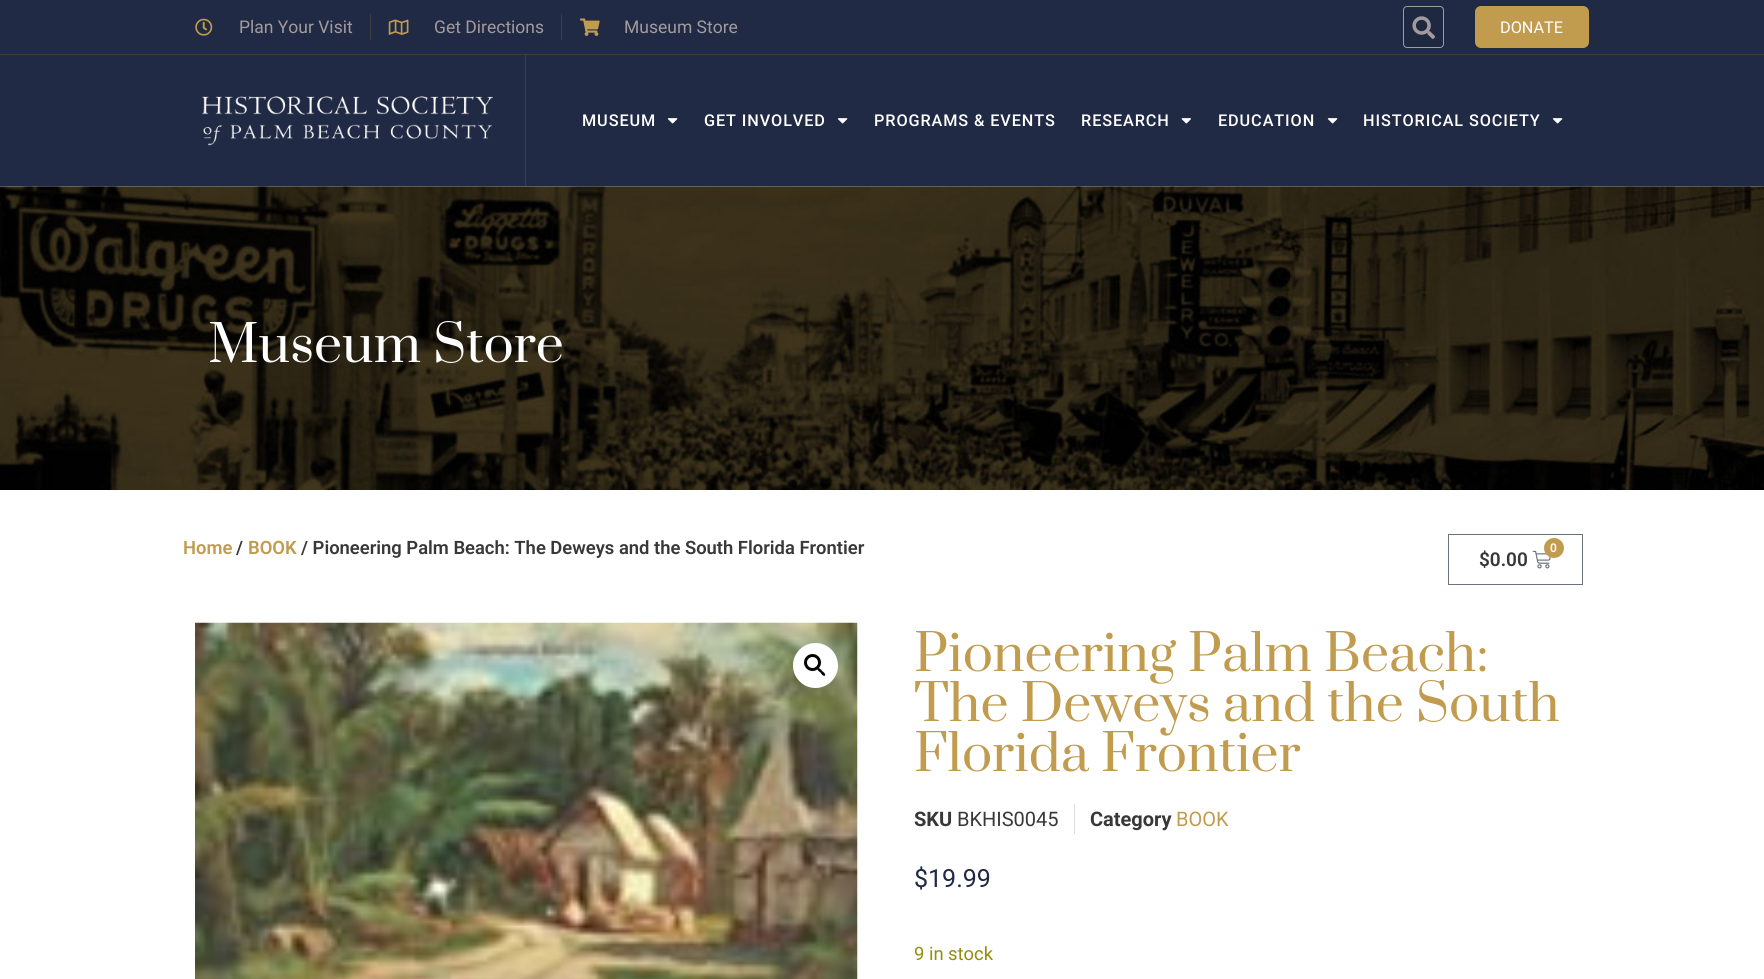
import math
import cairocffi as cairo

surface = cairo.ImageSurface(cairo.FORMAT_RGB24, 1764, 979)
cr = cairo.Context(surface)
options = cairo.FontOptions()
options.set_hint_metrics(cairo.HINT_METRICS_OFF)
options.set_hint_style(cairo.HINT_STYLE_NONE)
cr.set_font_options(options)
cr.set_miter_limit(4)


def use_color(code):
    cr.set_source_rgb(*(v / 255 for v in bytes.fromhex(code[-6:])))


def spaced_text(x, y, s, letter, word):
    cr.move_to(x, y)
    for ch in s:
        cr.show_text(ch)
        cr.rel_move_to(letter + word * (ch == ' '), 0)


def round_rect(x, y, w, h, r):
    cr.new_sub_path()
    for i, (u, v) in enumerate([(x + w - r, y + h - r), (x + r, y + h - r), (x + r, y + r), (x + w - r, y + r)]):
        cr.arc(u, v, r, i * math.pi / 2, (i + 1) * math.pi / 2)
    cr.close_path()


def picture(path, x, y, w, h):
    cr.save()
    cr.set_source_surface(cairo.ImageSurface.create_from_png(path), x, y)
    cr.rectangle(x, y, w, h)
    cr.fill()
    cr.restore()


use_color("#ffffff")
cr.paint()
use_color("#202a44")
cr.rectangle(0, 0, 1764, 54)
cr.fill()
use_color("#403d3f")
cr.rectangle(0, 54, 1764, 1)
cr.fill()
picture("img1.png", 195, 18, 18, 18)
cr.select_font_face("Roboto")
cr.set_font_size(17.5)
use_color("#a39a9d")
cr.move_to(239, 33)
cr.show_text("Plan Your Visit")
use_color("#403d3f")
cr.rectangle(370, 14, 1, 26)
cr.fill()
picture("img2.png", 388, 19, 21, 16)
use_color("#a39a9d")
cr.move_to(434, 33)
cr.show_text("Get Directions")
use_color("#403d3f")
cr.rectangle(561, 14, 1, 26)
cr.fill()
picture("img3.png", 580, 18, 20, 18)
use_color("#a39a9d")
cr.move_to(624, 33)
cr.show_text("Museum Store")
use_color("#1e2841")
round_rect(1403.5, 6.5, 40, 41, 3.5)
cr.fill_preserve()
use_color("#a39a9d")
cr.set_line_width(1)
cr.stroke()
picture("img4.png", 1412, 16, 24, 23)
use_color("#c19b4e")
round_rect(1475, 6, 114, 42, 6)
cr.fill()
cr.set_font_size(16.25)
use_color("#ffffff")
cr.move_to(1500, 33)
cr.show_text("DONATE")
use_color("#202a44")
cr.rectangle(0, 55, 1764, 131)
cr.fill()
use_color("#403d3f")
cr.rectangle(525, 55, 1, 131)
cr.fill()
picture("img5.png", 202, 96, 291, 50)
cr.select_font_face("Roboto Medium")
use_color("#ffffff")
spaced_text(582, 126, "MUSEUM", 0.9, 0)
picture("img6.png", 667, 118, 11, 6)
spaced_text(704, 126, "GET INVOLVED", 0.9, 0)
picture("img6.png", 837, 118, 11, 6)
spaced_text(874, 126, "PROGRAMS & EVENTS", 0.9, 0)
spaced_text(1081, 126, "RESEARCH", 0.9, 0)
picture("img7.png", 1181, 118, 10, 6)
spaced_text(1218, 126, "EDUCATION", 0.9, 0)
picture("img6.png", 1327, 118, 11, 6)
spaced_text(1363, 126, "HISTORICAL SOCIETY", 0.9, 0)
picture("img6.png", 1552, 118, 11, 6)
picture("img8.png", 0, 186, 1764, 304)
cr.select_font_face("Prata")
cr.set_font_size(50)
cr.move_to(208, 362)
cr.show_text("Museum Store")
cr.select_font_face("Roboto SemiBold")
cr.set_font_size(18.4)
use_color("#c19b4e")
cr.move_to(183, 554)
cr.show_text("Home")
use_color("#383838")
cr.move_to(236, 554)
cr.show_text("/")
use_color("#c19b4e")
cr.move_to(248, 554)
cr.show_text("BOOK")
use_color("#383838")
cr.move_to(301, 554)
cr.show_text("/ Pioneering Palm Beach: The Deweys and the South Florida Frontier")
cr.rectangle(1448.5, 534.5, 134, 50)
use_color("#69727d")
cr.stroke()
picture("img9.png", 1532, 550, 19, 19)
use_color("#c19b4e")
cr.arc(1554, 548, 10, 0, 2 * math.pi)
cr.fill()
cr.set_font_size(12)
use_color("#ffffff")
cr.move_to(1550, 552)
cr.show_text("0")
cr.set_font_size(19)
use_color("#383838")
cr.move_to(1479, 566)
cr.show_text("$0.00")
picture("img10.png", 195, 622, 663, 357)
use_color("#ffffff")
cr.arc(815.5, 665.5, 22.5, 0, 2 * math.pi)
cr.fill()
cr.arc(812.5, 662.5, 7, 0, 2 * math.pi)
use_color("#000000")
cr.set_line_width(3)
cr.stroke()
cr.new_path()
cr.move_to(817.5, 668.5)
cr.curve_to(819, 667, 821.5, 670, 822, 671)
cr.curve_to(823, 671.5, 826, 674, 825, 675.5)
cr.curve_to(823.5, 677, 821, 673.5, 820.5, 672.5)
cr.curve_to(819.5, 672, 816.5, 669.5, 817.5, 668.5)
cr.close_path()
cr.fill()
cr.select_font_face("Prata")
cr.set_font_size(50)
use_color("#c19b4e")
cr.move_to(914, 671)
cr.show_text("Pioneering Palm Beach:")
cr.move_to(914, 721)
cr.show_text("The Deweys and the South")
cr.move_to(914, 771)
cr.show_text("Florida Frontier")
cr.select_font_face("Roboto", cairo.FONT_SLANT_NORMAL, cairo.FONT_WEIGHT_BOLD)
cr.set_font_size(20)
use_color("#383838")
cr.move_to(914, 826)
cr.show_text("SKU")
cr.select_font_face("Roboto")
cr.move_to(957, 826)
cr.show_text("BKHIS0045")
use_color("#dddddd")
cr.rectangle(1074, 804, 1, 30)
cr.fill()
cr.select_font_face("Roboto", cairo.FONT_SLANT_NORMAL, cairo.FONT_WEIGHT_BOLD)
use_color("#383838")
cr.move_to(1090, 826)
cr.show_text("Category")
cr.select_font_face("Roboto")
use_color("#c19b4e")
cr.move_to(1176, 826)
cr.show_text("BOOK")
cr.set_font_size(25)
use_color("#202a44")
cr.move_to(914, 887)
cr.show_text("$19.99")
cr.set_font_size(18.4)
use_color("#958e09")
cr.move_to(914, 960)
cr.show_text("9 in stock")
surface.write_to_png("result.png")
